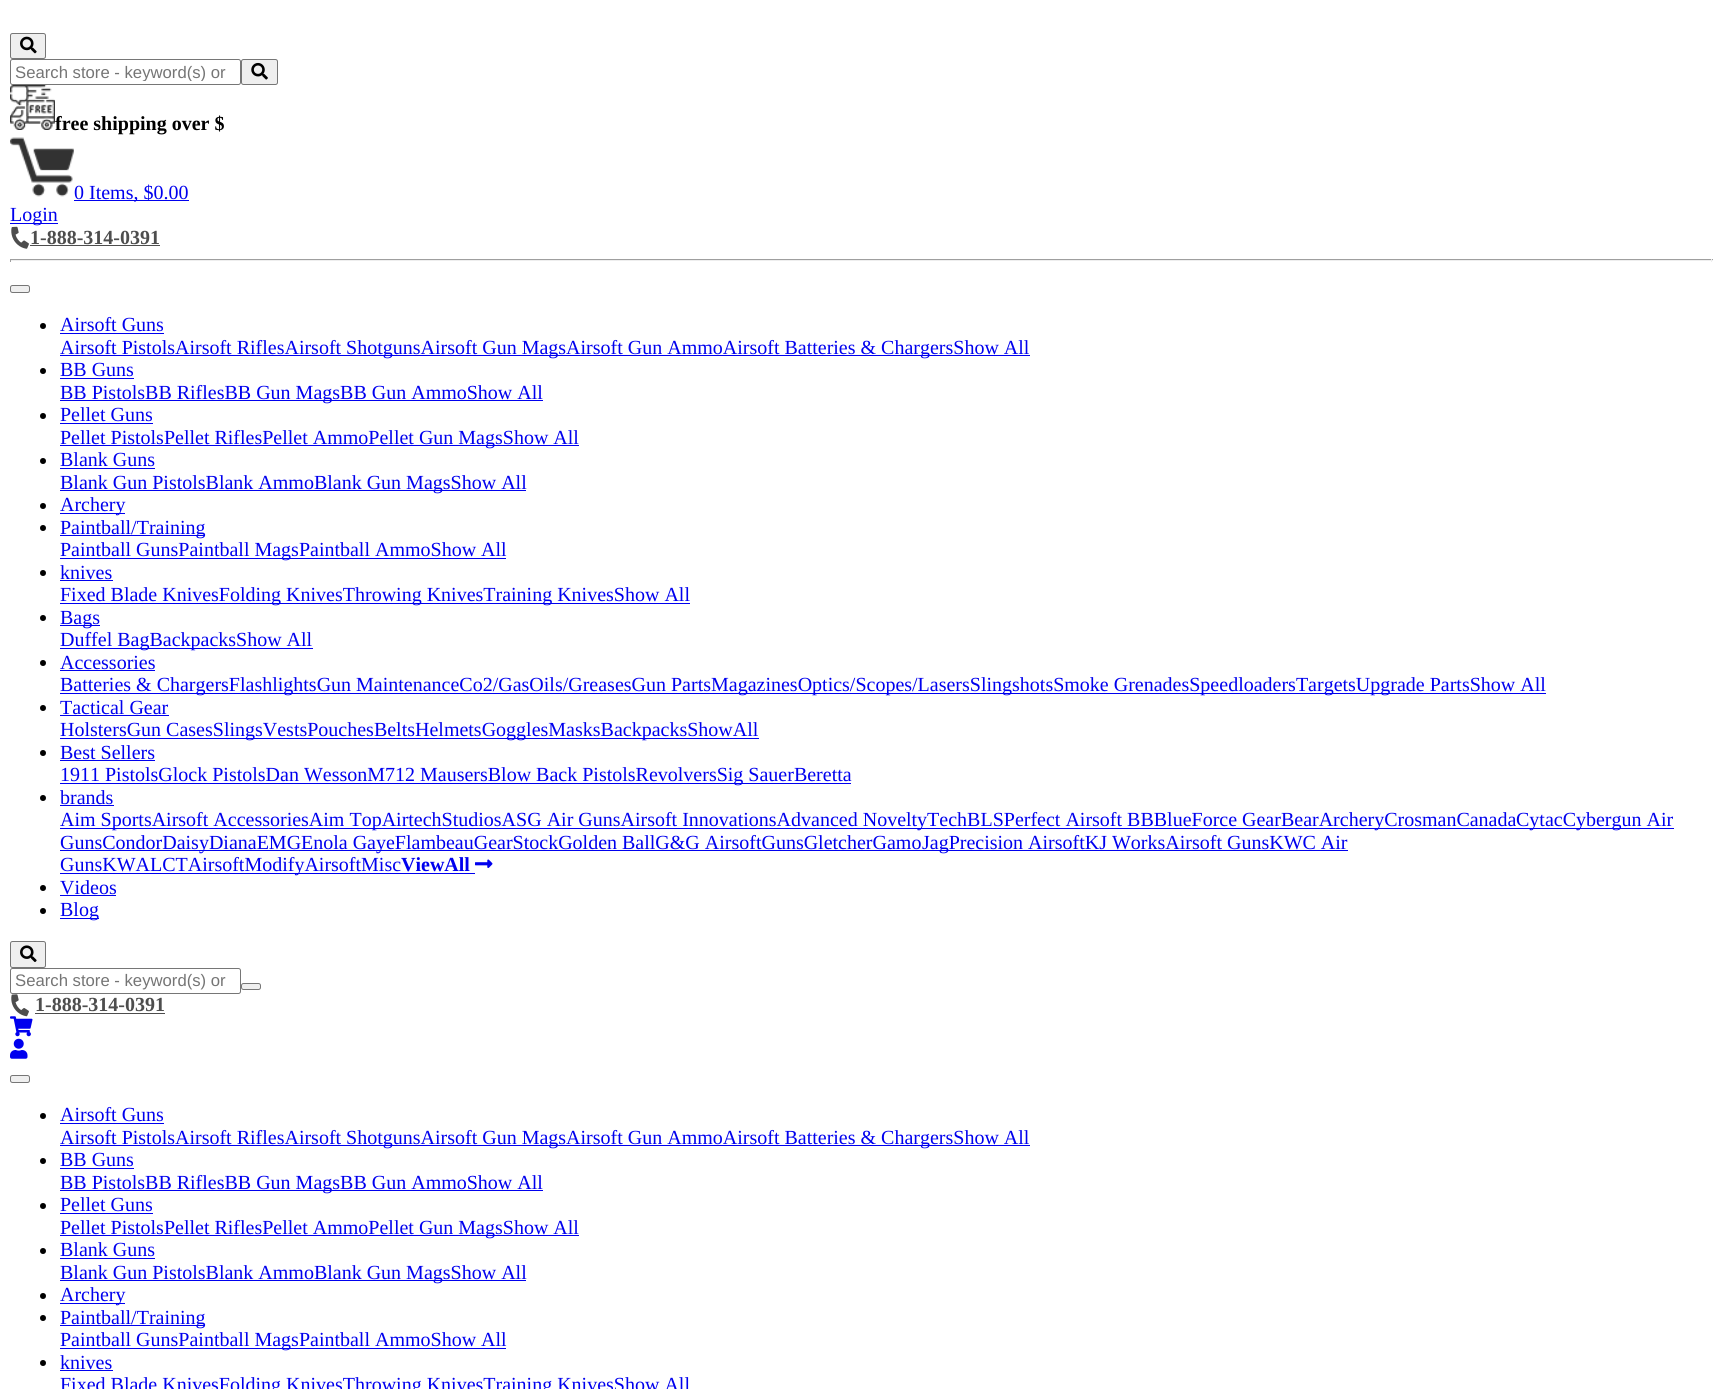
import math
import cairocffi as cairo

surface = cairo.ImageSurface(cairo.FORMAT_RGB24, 1722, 1389)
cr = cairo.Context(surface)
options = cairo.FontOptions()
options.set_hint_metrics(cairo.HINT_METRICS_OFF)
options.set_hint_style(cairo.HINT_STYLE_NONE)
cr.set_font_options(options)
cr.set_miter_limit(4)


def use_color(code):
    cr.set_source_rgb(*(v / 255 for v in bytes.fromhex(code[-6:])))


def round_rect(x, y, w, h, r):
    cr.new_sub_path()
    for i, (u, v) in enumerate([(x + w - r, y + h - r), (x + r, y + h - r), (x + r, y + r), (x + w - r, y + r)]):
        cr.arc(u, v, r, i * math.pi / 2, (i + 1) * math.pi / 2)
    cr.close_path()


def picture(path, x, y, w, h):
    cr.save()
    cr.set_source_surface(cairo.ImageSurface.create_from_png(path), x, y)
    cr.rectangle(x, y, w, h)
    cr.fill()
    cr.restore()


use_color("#ffffff")
cr.paint()
use_color("#efefef")
round_rect(10.5, 33.5, 35, 25, 2)
cr.fill_preserve()
use_color("#767676")
cr.set_line_width(1)
cr.stroke()
picture("img1.png", 20, 36, 17, 18)
round_rect(10.5, 59.5, 230, 25, 2)
cr.stroke()
cr.save()
cr.rectangle(15, 63, 221, 18)
cr.clip()
cr.select_font_face("Liberation Sans")
cr.set_font_size(16.7)
use_color("#757575")
cr.move_to(15, 78)
cr.show_text("Search store - keyword(s) or")
cr.restore()
use_color("#efefef")
round_rect(241.5, 59.5, 36, 25, 2)
cr.fill_preserve()
use_color("#767676")
cr.stroke()
picture("img2.png", 251, 62, 17, 18)
picture("img3.png", 10, 85, 45, 45)
cr.select_font_face("Liberation Serif", cairo.FONT_SLANT_NORMAL, cairo.FONT_WEIGHT_BOLD)
cr.set_font_size(20)
use_color("#000000")
cr.move_to(55, 130)
cr.show_text("free shipping over $")
picture("img4.png", 10, 137, 64, 60)
use_color("#0000ee")
cr.rectangle(74, 200, 115, 1)
cr.fill()
cr.select_font_face("Liberation Serif")
cr.move_to(74, 199)
cr.show_text("0 Items, $0.00")
cr.rectangle(10, 223, 48, 1)
cr.fill()
cr.move_to(10, 221)
cr.show_text("Login")
picture("img5.png", 11, 226, 18, 23)
cr.select_font_face("Liberation Serif", cairo.FONT_SLANT_NORMAL, cairo.FONT_WEIGHT_BOLD)
use_color("#4d4d4d")
cr.move_to(30, 244)
cr.show_text("1-888-314-0391")
cr.rectangle(30, 245, 130, 1)
cr.fill()
use_color("#9f9f9f")
cr.rectangle(10, 259, 1703, 1)
cr.fill()
use_color("#eeeeee")
cr.rectangle(1711, 259, 1, 3)
cr.fill()
cr.rectangle(10, 260, 1703, 1)
cr.fill()
use_color("#9f9f9f")
cr.rectangle(10, 259, 1, 3)
cr.fill()
use_color("#efefef")
round_rect(10.5, 285.5, 19, 7, 2)
cr.fill_preserve()
use_color("#767676")
cr.stroke()
use_color("#000000")
cr.arc(43, 326, 3, 0, 2 * math.pi)
cr.fill()
cr.select_font_face("Liberation Serif")
use_color("#0000ee")
cr.move_to(60, 331)
cr.show_text("Airsoft Guns")
cr.rectangle(60, 333, 104, 1)
cr.fill()
cr.rectangle(60, 355, 970, 1)
cr.fill()
cr.move_to(60, 354)
cr.show_text("Airsoft PistolsAirsoft RiflesAirsoft ShotgunsAirsoft Gun MagsAirsoft Gun AmmoAirsoft Batteries & ChargersShow All")
use_color("#000000")
cr.new_path()
cr.arc(43, 371, 3, 0, 2 * math.pi)
cr.fill()
use_color("#0000ee")
cr.move_to(60, 376)
cr.show_text("BB Guns")
cr.rectangle(60, 378, 74, 1)
cr.fill()
cr.rectangle(60, 400, 483, 1)
cr.fill()
cr.move_to(60, 399)
cr.show_text("BB PistolsBB RiflesBB Gun MagsBB Gun AmmoShow All")
use_color("#000000")
cr.new_path()
cr.arc(43, 416, 3, 0, 2 * math.pi)
cr.fill()
use_color("#0000ee")
cr.move_to(60, 421)
cr.show_text("Pellet Guns")
cr.rectangle(60, 423, 93, 1)
cr.fill()
cr.rectangle(60, 445, 519, 1)
cr.fill()
cr.move_to(60, 444)
cr.show_text("Pellet PistolsPellet RiflesPellet AmmoPellet Gun MagsShow All")
use_color("#000000")
cr.new_path()
cr.arc(43, 461, 3, 0, 2 * math.pi)
cr.fill()
use_color("#0000ee")
cr.move_to(60, 466)
cr.show_text("Blank Guns")
cr.rectangle(60, 468, 95, 1)
cr.fill()
cr.rectangle(60, 490, 466, 1)
cr.fill()
cr.move_to(60, 489)
cr.show_text("Blank Gun PistolsBlank AmmoBlank Gun MagsShow All")
use_color("#000000")
cr.new_path()
cr.arc(43, 506, 3, 0, 2 * math.pi)
cr.fill()
use_color("#0000ee")
cr.rectangle(60, 513, 65, 1)
cr.fill()
cr.move_to(60, 511)
cr.show_text("Archery")
use_color("#000000")
cr.new_path()
cr.arc(43, 528, 3, 0, 2 * math.pi)
cr.fill()
use_color("#0000ee")
cr.rectangle(60, 535, 145, 1)
cr.fill()
cr.move_to(60, 534)
cr.show_text("Paintball/Training")
cr.rectangle(60, 558, 446, 1)
cr.fill()
cr.move_to(60, 556)
cr.show_text("Paintball GunsPaintball MagsPaintball AmmoShow All")
use_color("#000000")
cr.new_path()
cr.arc(43, 573, 3, 0, 2 * math.pi)
cr.fill()
use_color("#0000ee")
cr.move_to(60, 579)
cr.show_text("knives")
cr.rectangle(60, 580, 53, 1)
cr.fill()
cr.rectangle(60, 603, 630, 1)
cr.fill()
cr.move_to(60, 601)
cr.show_text("Fixed Blade KnivesFolding KnivesThrowing KnivesTraining KnivesShow All")
use_color("#000000")
cr.new_path()
cr.arc(43, 618, 3, 0, 2 * math.pi)
cr.fill()
use_color("#0000ee")
cr.rectangle(60, 625, 40, 1)
cr.fill()
cr.move_to(60, 624)
cr.show_text("Bags")
cr.rectangle(60, 648, 253, 1)
cr.fill()
cr.move_to(60, 646)
cr.show_text("Duffel BagBackpacksShow All")
use_color("#000000")
cr.new_path()
cr.arc(43, 663, 3, 0, 2 * math.pi)
cr.fill()
use_color("#0000ee")
cr.move_to(60, 669)
cr.show_text("Accessories")
cr.rectangle(60, 670, 95, 1)
cr.fill()
cr.rectangle(60, 693, 1486, 1)
cr.fill()
cr.move_to(60, 691)
cr.show_text("Batteries & ChargersFlashlightsGun MaintenanceCo2/GasOils/GreasesGun PartsMagazinesOptics/Scopes/LasersSlingshotsSmoke GrenadesSpeedloadersTargetsUpgrade PartsShow All")
use_color("#000000")
cr.new_path()
cr.arc(43, 708, 3, 0, 2 * math.pi)
cr.fill()
use_color("#0000ee")
cr.move_to(60, 714)
cr.show_text("Tactical Gear")
cr.rectangle(60, 715, 109, 1)
cr.fill()
cr.rectangle(60, 738, 699, 1)
cr.fill()
cr.move_to(60, 736)
cr.show_text("HolstersGun CasesSlingsVestsPouchesBeltsHelmetsGogglesMasksBackpacksShowAll")
use_color("#000000")
cr.new_path()
cr.arc(43, 753, 3, 0, 2 * math.pi)
cr.fill()
use_color("#0000ee")
cr.move_to(60, 759)
cr.show_text("Best Sellers")
cr.rectangle(60, 760, 95, 1)
cr.fill()
cr.rectangle(60, 783, 791, 1)
cr.fill()
cr.move_to(60, 781)
cr.show_text("1911 PistolsGlock PistolsDan WessonM712 MausersBlow Back PistolsRevolversSig SauerBeretta")
use_color("#000000")
cr.new_path()
cr.arc(43, 798, 3, 0, 2 * math.pi)
cr.fill()
use_color("#0000ee")
cr.move_to(60, 804)
cr.show_text("brands")
cr.rectangle(60, 805, 54, 1)
cr.fill()
cr.rectangle(60, 828, 1324, 1)
cr.fill()
cr.move_to(60, 826)
cr.show_text("Aim SportsAirsoft AccessoriesAim TopAirtechStudiosASG Air GunsAirsoft InnovationsAdvanced NoveltyTechBLSPerfect Airsoft BBBlueForce GearBearArcheryCrosmanCanada")
cr.rectangle(1384, 828, 290, 1)
cr.fill()
cr.move_to(1516, 826)
cr.show_text("CytacCybergun Air")
cr.rectangle(60, 850, 196, 1)
cr.fill()
cr.move_to(60, 849)
cr.show_text("GunsCondorDaisyDianaEMG")
cr.rectangle(256, 850, 399, 1)
cr.fill()
cr.move_to(301, 849)
cr.show_text("Enola GayeFlambeauGearStockGolden BallG&G AirsoftGunsGletcherGamo")
cr.rectangle(655, 850, 429, 1)
cr.fill()
cr.move_to(922, 849)
cr.show_text("JagPrecision AirsoftKJ WorksAirsoft GunsKWC Air")
cr.rectangle(1084, 850, 264, 1)
cr.fill()
cr.rectangle(60, 873, 415, 1)
cr.fill()
cr.move_to(60, 871)
cr.show_text("GunsKWALCTAirsoftModifyAirsoftMisc")
cr.select_font_face("Liberation Serif", cairo.FONT_SLANT_NORMAL, cairo.FONT_WEIGHT_BOLD)
cr.move_to(401, 871)
cr.show_text("ViewAll")
picture("img6.png", 475, 859, 18, 9)
use_color("#000000")
cr.arc(43, 888, 3, 0, 2 * math.pi)
cr.fill()
cr.select_font_face("Liberation Serif")
use_color("#0000ee")
cr.move_to(60, 894)
cr.show_text("Videos")
cr.rectangle(60, 895, 56, 1)
cr.fill()
use_color("#000000")
cr.arc(43, 911, 3, 0, 2 * math.pi)
cr.fill()
use_color("#0000ee")
cr.rectangle(60, 918, 39, 1)
cr.fill()
cr.move_to(60, 916)
cr.show_text("Blog")
use_color("#efefef")
round_rect(10.5, 941.5, 35, 26, 2)
cr.fill_preserve()
use_color("#767676")
cr.stroke()
picture("img7.png", 20, 945, 17, 17)
round_rect(10.5, 968.5, 230, 25, 2)
cr.stroke()
cr.select_font_face("Liberation Sans")
cr.set_font_size(16.7)
use_color("#757575")
cr.move_to(15, 986)
cr.show_text("Search store - keyword(s) or")
use_color("#efefef")
round_rect(241.5, 983.5, 19, 6, 2)
cr.fill_preserve()
use_color("#767676")
cr.stroke()
picture("img9.png", 10, 1016, 23, 21)
picture("img8.png", 11, 994, 18, 23)
cr.select_font_face("Liberation Serif", cairo.FONT_SLANT_NORMAL, cairo.FONT_WEIGHT_BOLD)
cr.set_font_size(20)
use_color("#4d4d4d")
cr.move_to(35, 1011)
cr.show_text("1-888-314-0391")
cr.rectangle(35, 1013, 130, 1)
cr.fill()
picture("img10.png", 10, 1038, 18, 21)
use_color("#efefef")
round_rect(10.5, 1075.5, 19, 7, 2)
cr.fill_preserve()
use_color("#767676")
cr.stroke()
use_color("#000000")
cr.arc(43, 1116, 3, 0, 2 * math.pi)
cr.fill()
cr.select_font_face("Liberation Serif")
use_color("#0000ee")
cr.move_to(60, 1121)
cr.show_text("Airsoft Guns")
cr.rectangle(60, 1123, 104, 1)
cr.fill()
cr.rectangle(60, 1145, 970, 1)
cr.fill()
cr.move_to(60, 1144)
cr.show_text("Airsoft PistolsAirsoft RiflesAirsoft ShotgunsAirsoft Gun MagsAirsoft Gun AmmoAirsoft Batteries & ChargersShow All")
use_color("#000000")
cr.new_path()
cr.arc(43, 1161, 3, 0, 2 * math.pi)
cr.fill()
use_color("#0000ee")
cr.move_to(60, 1166)
cr.show_text("BB Guns")
cr.rectangle(60, 1168, 74, 1)
cr.fill()
cr.rectangle(60, 1190, 483, 1)
cr.fill()
cr.move_to(60, 1189)
cr.show_text("BB PistolsBB RiflesBB Gun MagsBB Gun AmmoShow All")
use_color("#000000")
cr.new_path()
cr.arc(43, 1206, 3, 0, 2 * math.pi)
cr.fill()
use_color("#0000ee")
cr.move_to(60, 1211)
cr.show_text("Pellet Guns")
cr.rectangle(60, 1213, 93, 1)
cr.fill()
cr.rectangle(60, 1235, 519, 1)
cr.fill()
cr.move_to(60, 1234)
cr.show_text("Pellet PistolsPellet RiflesPellet AmmoPellet Gun MagsShow All")
use_color("#000000")
cr.new_path()
cr.arc(43, 1251, 3, 0, 2 * math.pi)
cr.fill()
use_color("#0000ee")
cr.move_to(60, 1256)
cr.show_text("Blank Guns")
cr.rectangle(60, 1258, 95, 1)
cr.fill()
cr.rectangle(60, 1280, 466, 1)
cr.fill()
cr.move_to(60, 1279)
cr.show_text("Blank Gun PistolsBlank AmmoBlank Gun MagsShow All")
use_color("#000000")
cr.new_path()
cr.arc(43, 1296, 3, 0, 2 * math.pi)
cr.fill()
use_color("#0000ee")
cr.rectangle(60, 1303, 65, 1)
cr.fill()
cr.move_to(60, 1301)
cr.show_text("Archery")
use_color("#000000")
cr.new_path()
cr.arc(43, 1318, 3, 0, 2 * math.pi)
cr.fill()
use_color("#0000ee")
cr.rectangle(60, 1325, 145, 1)
cr.fill()
cr.move_to(60, 1324)
cr.show_text("Paintball/Training")
cr.rectangle(60, 1348, 446, 1)
cr.fill()
cr.move_to(60, 1346)
cr.show_text("Paintball GunsPaintball MagsPaintball AmmoShow All")
use_color("#000000")
cr.new_path()
cr.arc(43, 1363, 3, 0, 2 * math.pi)
cr.fill()
use_color("#0000ee")
cr.move_to(60, 1369)
cr.show_text("knives")
cr.rectangle(60, 1370, 53, 1)
cr.fill()
cr.move_to(60, 1391)
cr.show_text("Fixed Blade KnivesFolding KnivesThrowing KnivesTraining KnivesShow All")
surface.write_to_png("result.png")
